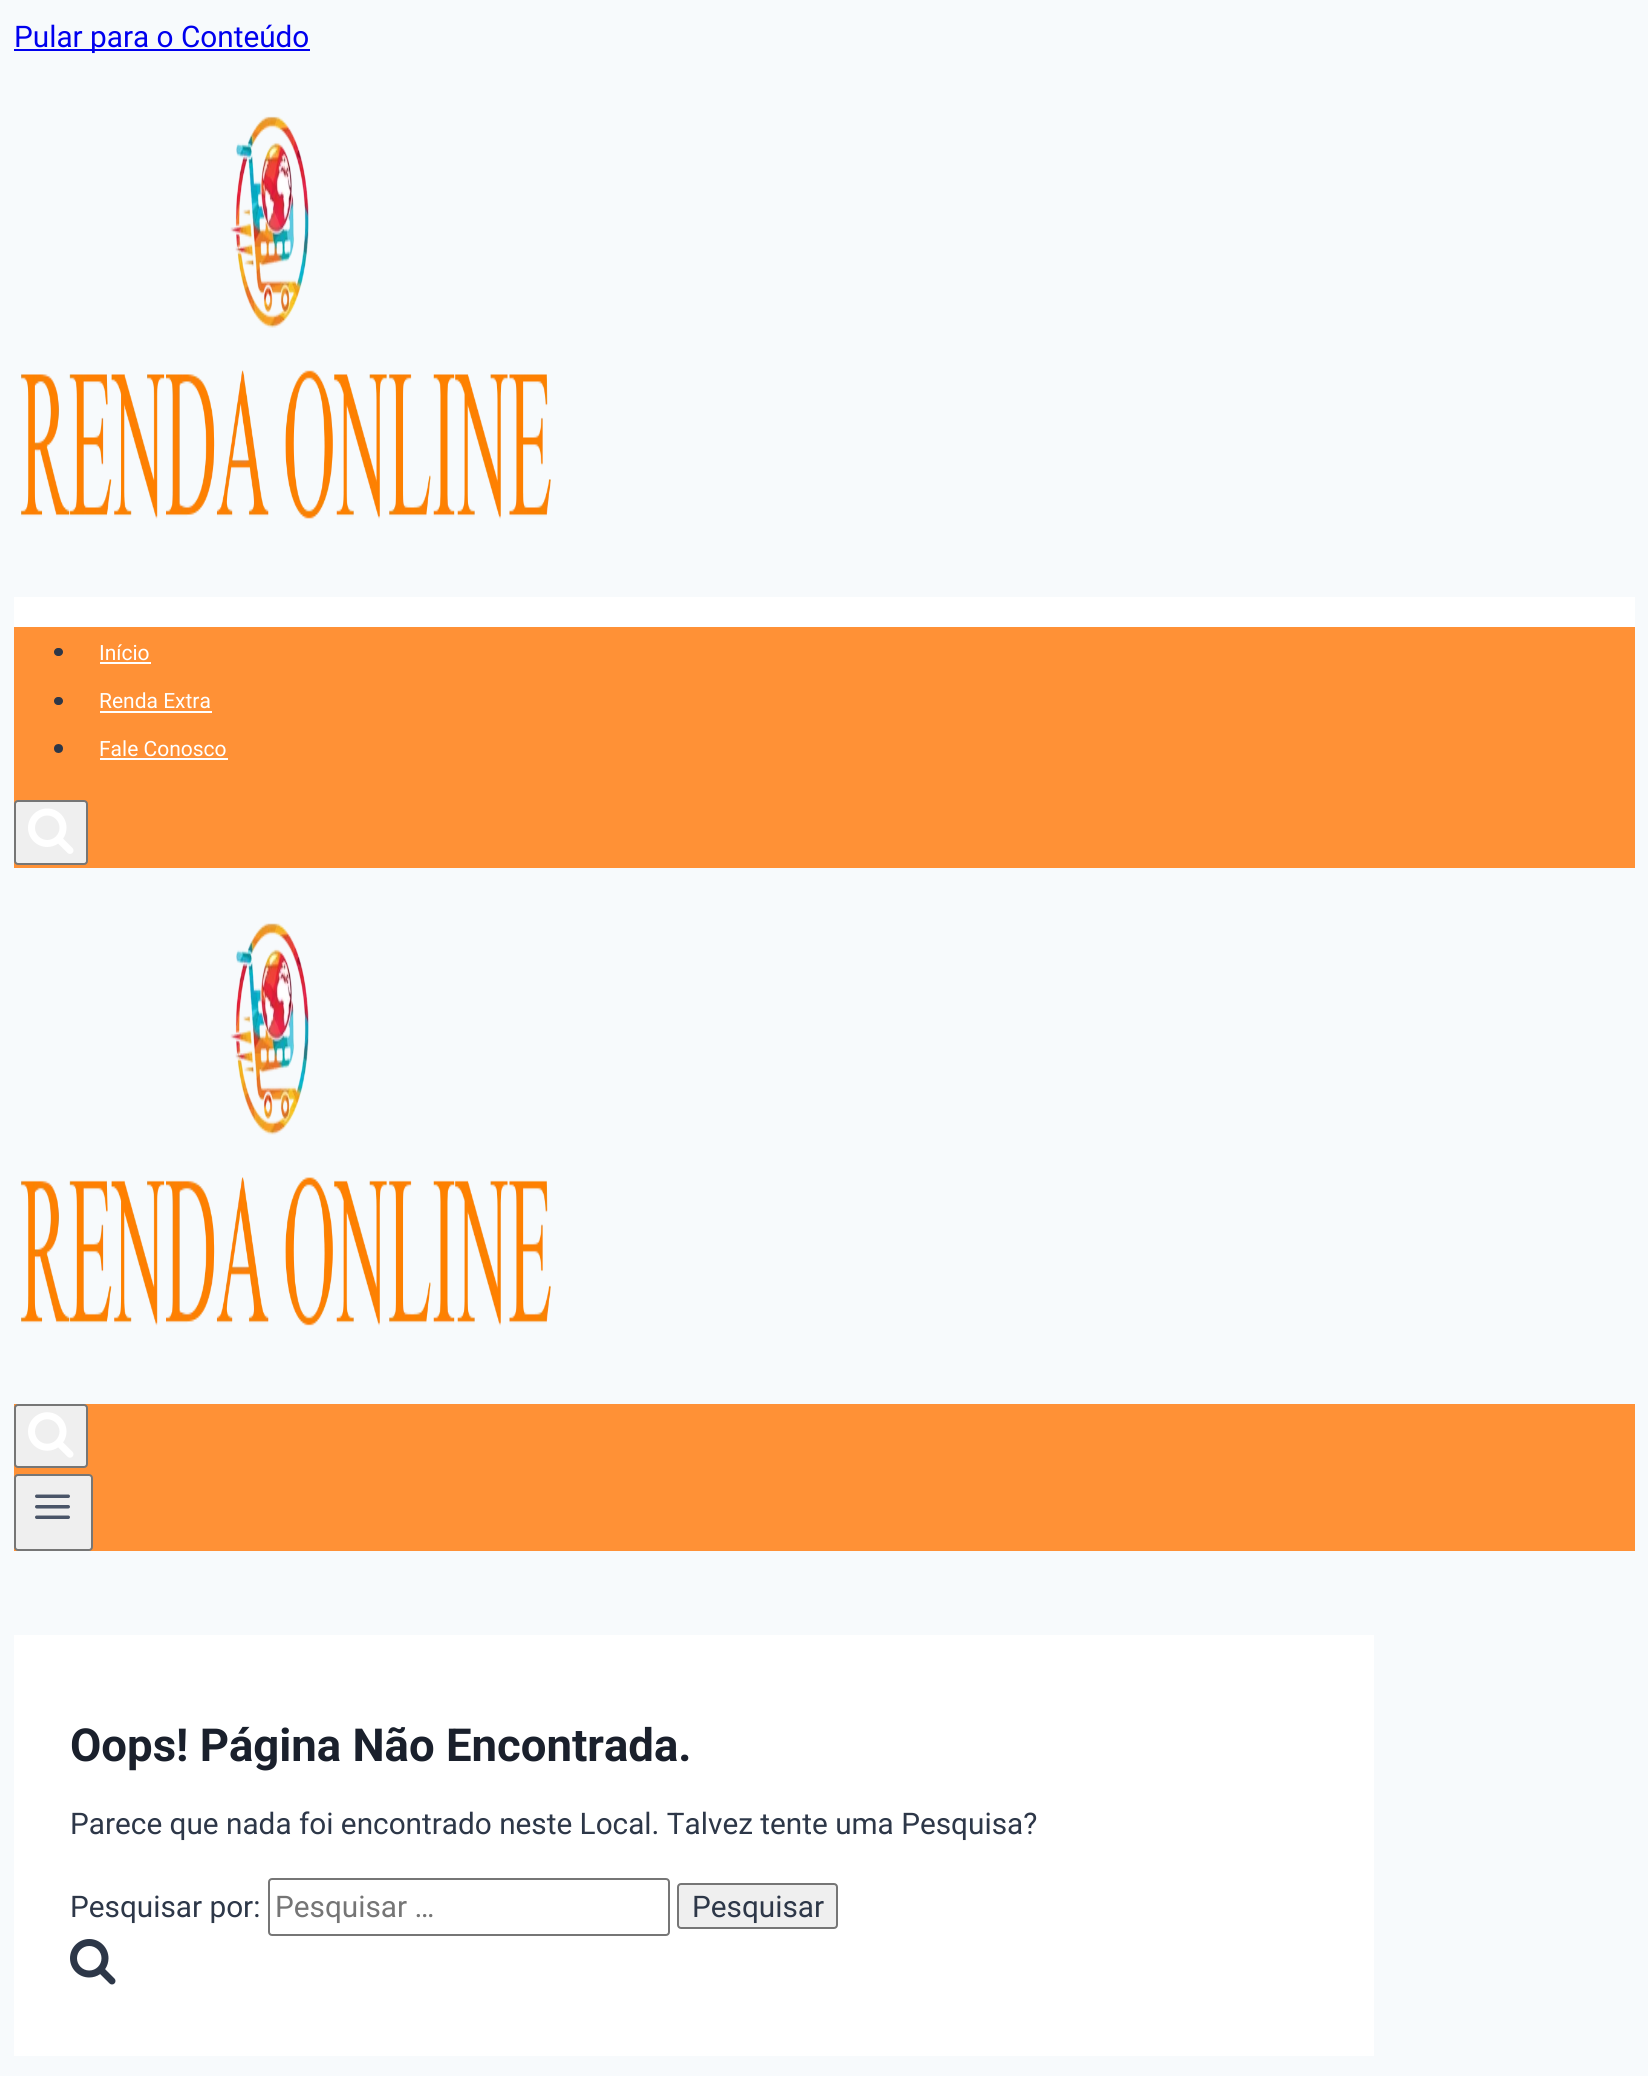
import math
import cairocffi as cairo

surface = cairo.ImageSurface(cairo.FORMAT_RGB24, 1648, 2076)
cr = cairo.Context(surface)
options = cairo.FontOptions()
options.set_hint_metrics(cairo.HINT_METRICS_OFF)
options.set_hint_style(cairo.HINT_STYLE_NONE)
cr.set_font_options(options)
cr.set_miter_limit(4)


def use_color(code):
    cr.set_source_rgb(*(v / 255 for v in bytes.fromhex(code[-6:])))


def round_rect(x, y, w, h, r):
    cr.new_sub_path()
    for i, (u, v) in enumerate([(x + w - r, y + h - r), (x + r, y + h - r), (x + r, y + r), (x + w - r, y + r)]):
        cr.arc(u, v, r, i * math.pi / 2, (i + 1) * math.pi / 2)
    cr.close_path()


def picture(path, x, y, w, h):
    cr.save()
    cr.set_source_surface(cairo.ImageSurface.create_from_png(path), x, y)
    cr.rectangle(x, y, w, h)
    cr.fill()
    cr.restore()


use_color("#f7fafc")
cr.paint()
use_color("#0000ee")
cr.rectangle(14, 49, 296, 2)
cr.fill()
cr.select_font_face("Roboto")
cr.set_font_size(29.75)
cr.move_to(14, 47)
cr.show_text("Pular para o Conteúdo")
use_color("#ffffff")
cr.rectangle(14, 597, 1621, 30)
cr.fill()
picture("img1.png", 21, 116, 530, 403)
use_color("#ff9136")
cr.rectangle(14, 627, 1621, 241)
cr.fill()
use_color("#2d3748")
round_rect(54, 648, 9, 8, 4)
cr.fill()
cr.set_font_size(21)
use_color("#ffffff")
cr.move_to(99, 660)
cr.show_text("Início")
cr.rectangle(100, 662, 51, 2)
cr.fill()
use_color("#2d3748")
round_rect(54, 697, 9, 8, 4)
cr.fill()
use_color("#ffffff")
cr.move_to(99, 708)
cr.show_text("Renda Extra")
cr.rectangle(100, 711, 112, 2)
cr.fill()
use_color("#2d3748")
cr.arc(58.5, 748.5, 4.5, 0, 2 * math.pi)
cr.fill()
use_color("#ffffff")
cr.move_to(99, 756)
cr.show_text("Fale Conosco")
cr.rectangle(100, 758, 128, 2)
cr.fill()
use_color("#efefef")
round_rect(15, 801, 72, 63, 3)
cr.fill_preserve()
use_color("#767676")
cr.stroke()
picture("img2.png", 28, 808, 46, 46)
picture("img3.png", 21, 923, 530, 403)
use_color("#ff9136")
cr.rectangle(14, 1404, 1621, 147)
cr.fill()
use_color("#efefef")
round_rect(15, 1405, 72, 62, 3)
cr.fill_preserve()
use_color("#767676")
cr.stroke()
picture("img4.png", 28, 1412, 46, 46)
use_color("#efefef")
round_rect(15, 1475, 77, 75, 3)
cr.fill_preserve()
use_color("#767676")
cr.stroke()
picture("img5.png", 35, 1494, 35, 25)
use_color("#ffffff")
cr.rectangle(14, 1635, 1360, 421)
cr.fill()
cr.select_font_face("Roboto", cairo.FONT_SLANT_NORMAL, cairo.FONT_WEIGHT_BOLD)
cr.set_font_size(45.5)
use_color("#1a202c")
cr.move_to(70, 1761)
cr.show_text("Oops! Página Não Encontrada.")
cr.select_font_face("Roboto")
cr.set_font_size(29.75)
use_color("#2d3748")
cr.move_to(70, 1834)
cr.show_text("Parece que nada foi encontrado neste Local. Talvez tente uma Pesquisa?")
cr.move_to(70, 1917)
cr.show_text("Pesquisar por:")
round_rect(269, 1879, 400, 56, 3)
use_color("#767676")
cr.stroke()
use_color("#757575")
cr.move_to(275, 1917)
cr.show_text("Pesquisar …")
use_color("#efefef")
round_rect(678, 1884, 159, 44, 3)
cr.fill_preserve()
use_color("#767676")
cr.stroke()
use_color("#2d3748")
cr.move_to(692, 1917)
cr.show_text("Pesquisar")
picture("img6.png", 70, 1939, 46, 46)
surface.write_to_png("result.png")
